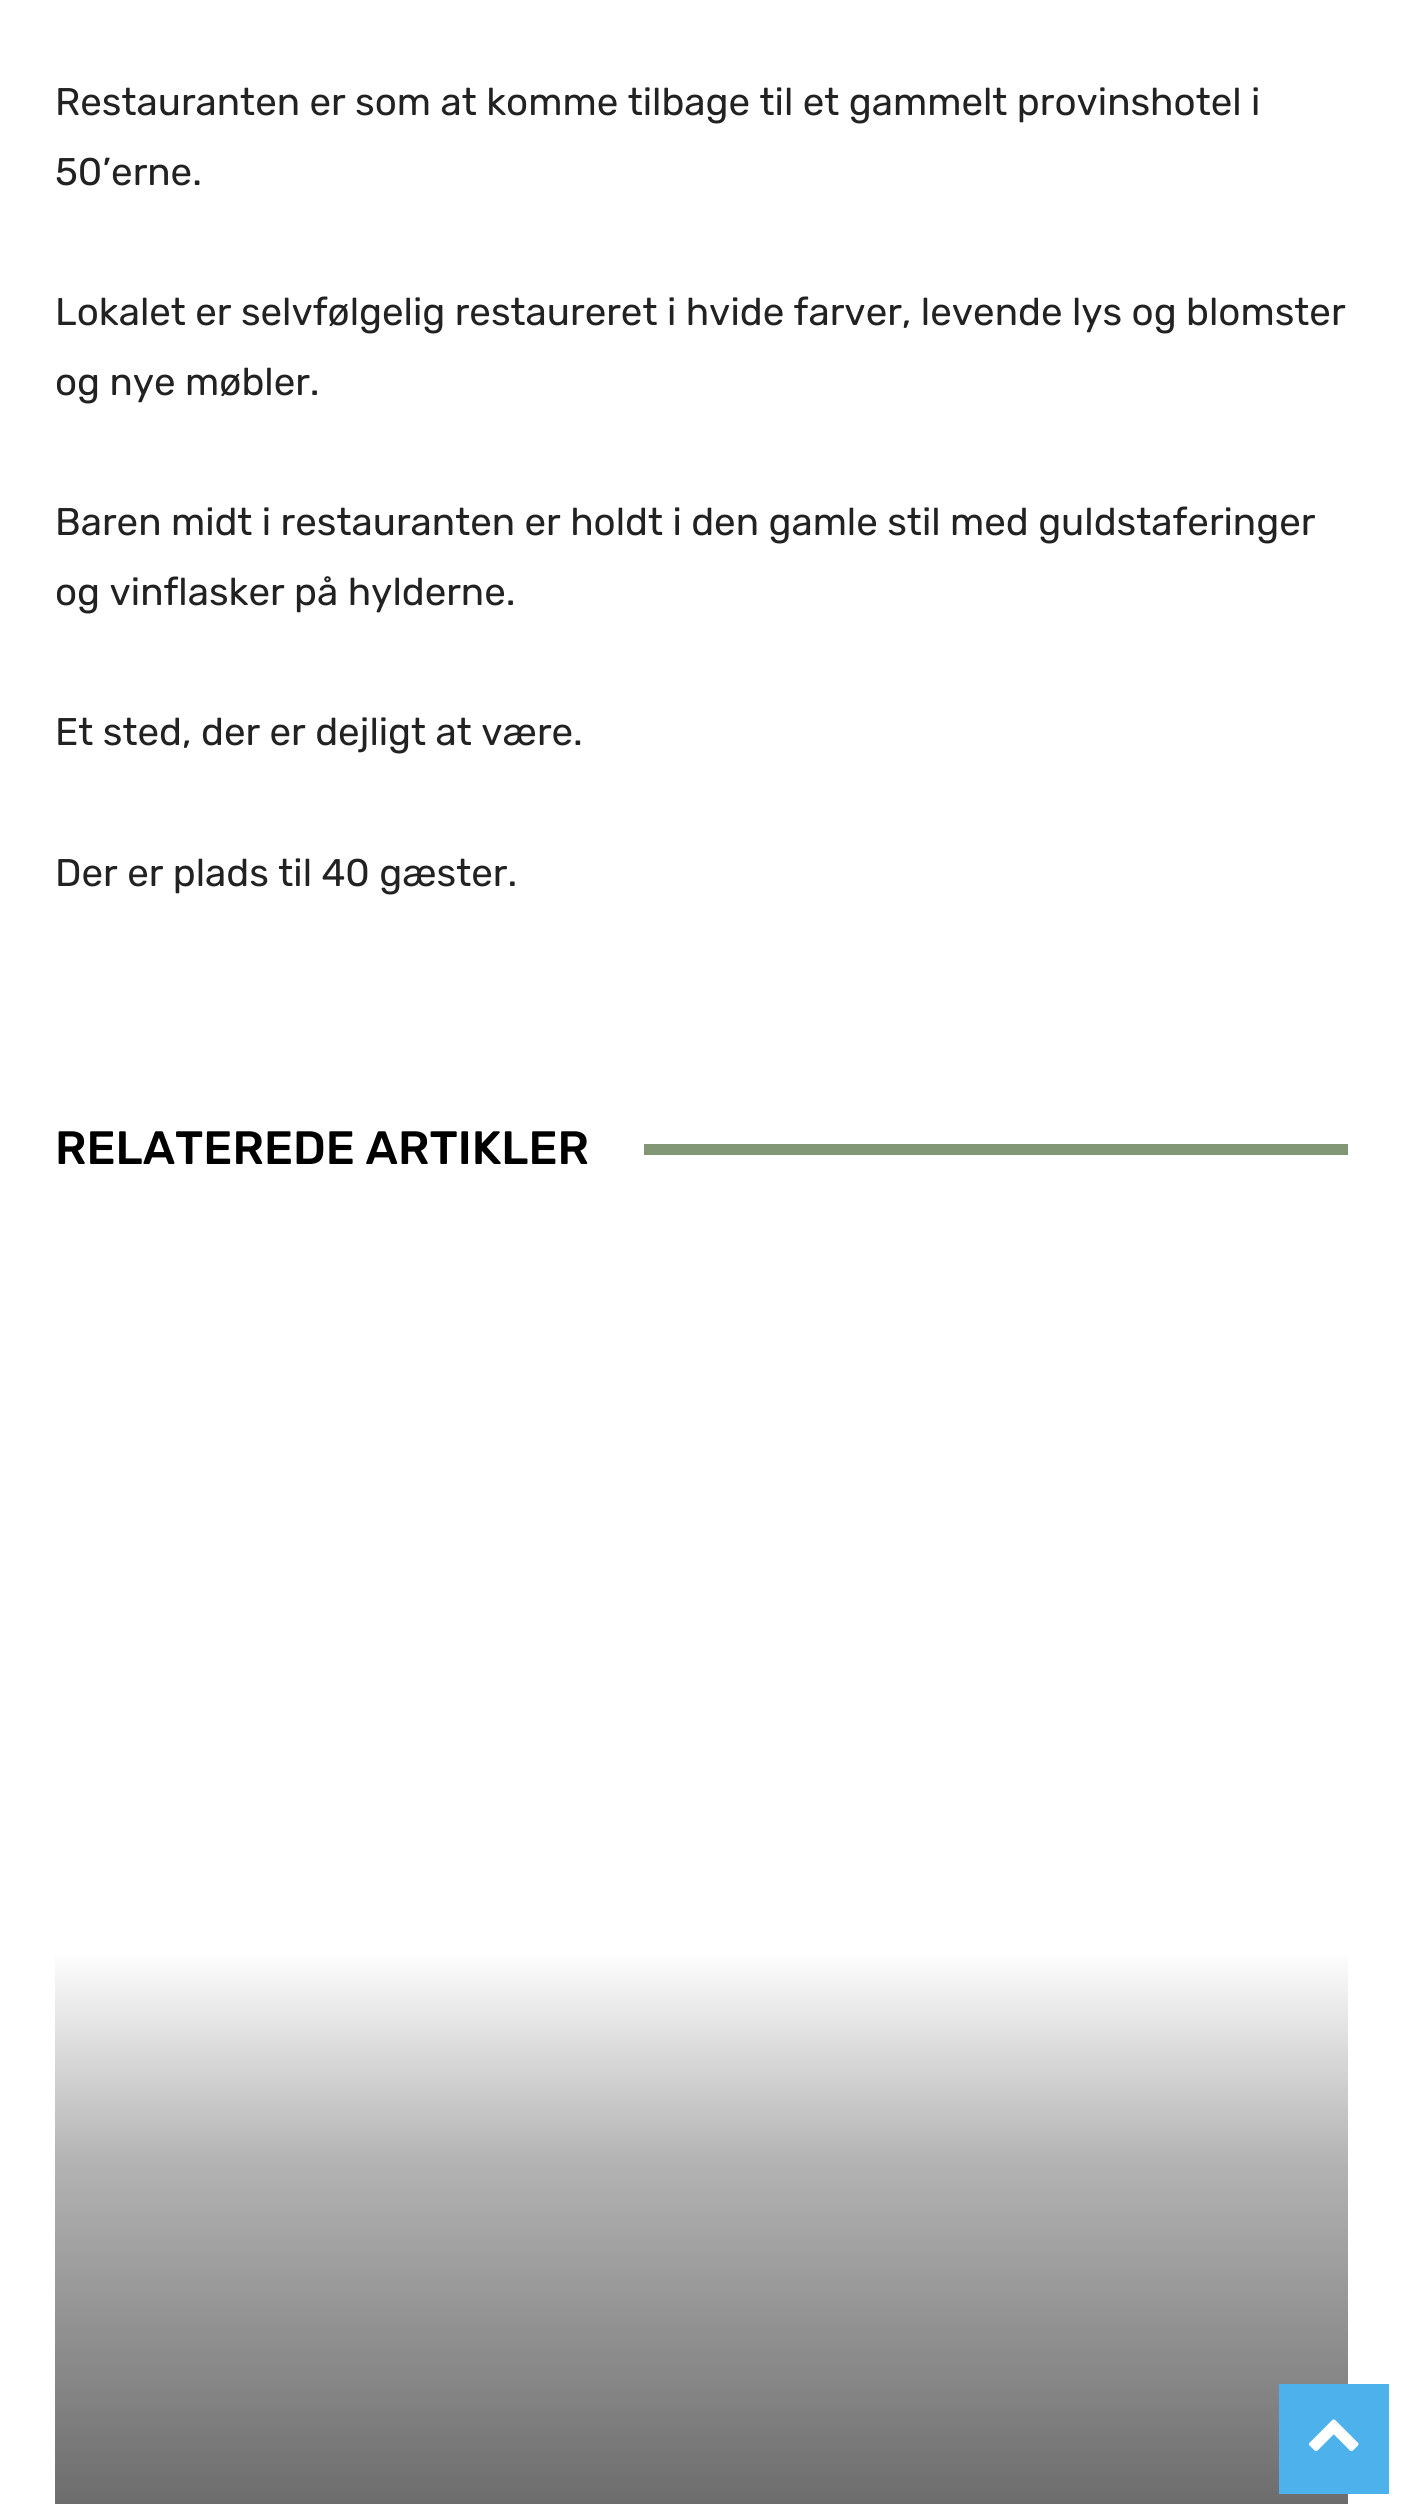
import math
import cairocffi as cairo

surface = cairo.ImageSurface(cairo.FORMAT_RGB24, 1402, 2504)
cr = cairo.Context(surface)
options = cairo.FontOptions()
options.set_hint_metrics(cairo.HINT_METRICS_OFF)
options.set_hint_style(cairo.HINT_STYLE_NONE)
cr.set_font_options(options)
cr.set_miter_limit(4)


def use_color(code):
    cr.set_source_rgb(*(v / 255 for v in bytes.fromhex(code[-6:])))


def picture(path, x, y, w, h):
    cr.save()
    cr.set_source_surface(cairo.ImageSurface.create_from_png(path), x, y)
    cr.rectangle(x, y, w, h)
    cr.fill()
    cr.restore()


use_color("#ffffff")
cr.paint()
cr.select_font_face("Rubik")
cr.set_font_size(38.5)
use_color("#222222")
cr.move_to(55, 115)
cr.show_text("Restauranten er som at komme tilbage til et gammelt provinshotel i")
cr.move_to(55, 185)
cr.show_text("50’erne.")
cr.move_to(55, 325)
cr.show_text("Lokalet er selvfølgelig restaureret i hvide farver, levende lys og blomster")
cr.move_to(55, 395)
cr.show_text("og nye møbler.")
cr.move_to(55, 535)
cr.show_text("Baren midt i restauranten er holdt i den gamle stil med guldstaferinger")
cr.move_to(55, 605)
cr.show_text("og vinflasker på hylderne.")
cr.move_to(55, 745)
cr.show_text("Et sted, der er dejligt at være.")
cr.move_to(55, 886)
cr.show_text("Der er plads til 40 gæster.")
cr.select_font_face("Rubik Medium")
cr.set_font_size(46.75)
use_color("#000000")
cr.move_to(55, 1164)
cr.show_text("RELATEREDE ARTIKLER")
use_color("#829875")
cr.rectangle(644, 1144, 704, 11)
cr.fill()
gradient = cairo.LinearGradient(701, 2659, 701, 1238)
gradient.add_color_stop_rgba(0, 0.302, 0.302, 0.302, 1)
gradient.add_color_stop_rgba(0.35, 0.702, 0.702, 0.702, 1)
gradient.add_color_stop_rgba(0.5, 1, 1, 1, 1)
gradient.add_color_stop_rgba(1, 1, 1, 1, 1)
cr.set_source(gradient)
cr.rectangle(55, 1956, 1293, 548)
cr.fill()
use_color("#4db2ec")
cr.rectangle(1279, 2384, 110, 110)
cr.fill()
picture("img1.png", 1309, 2419, 50, 33)
surface.write_to_png("result.png")
